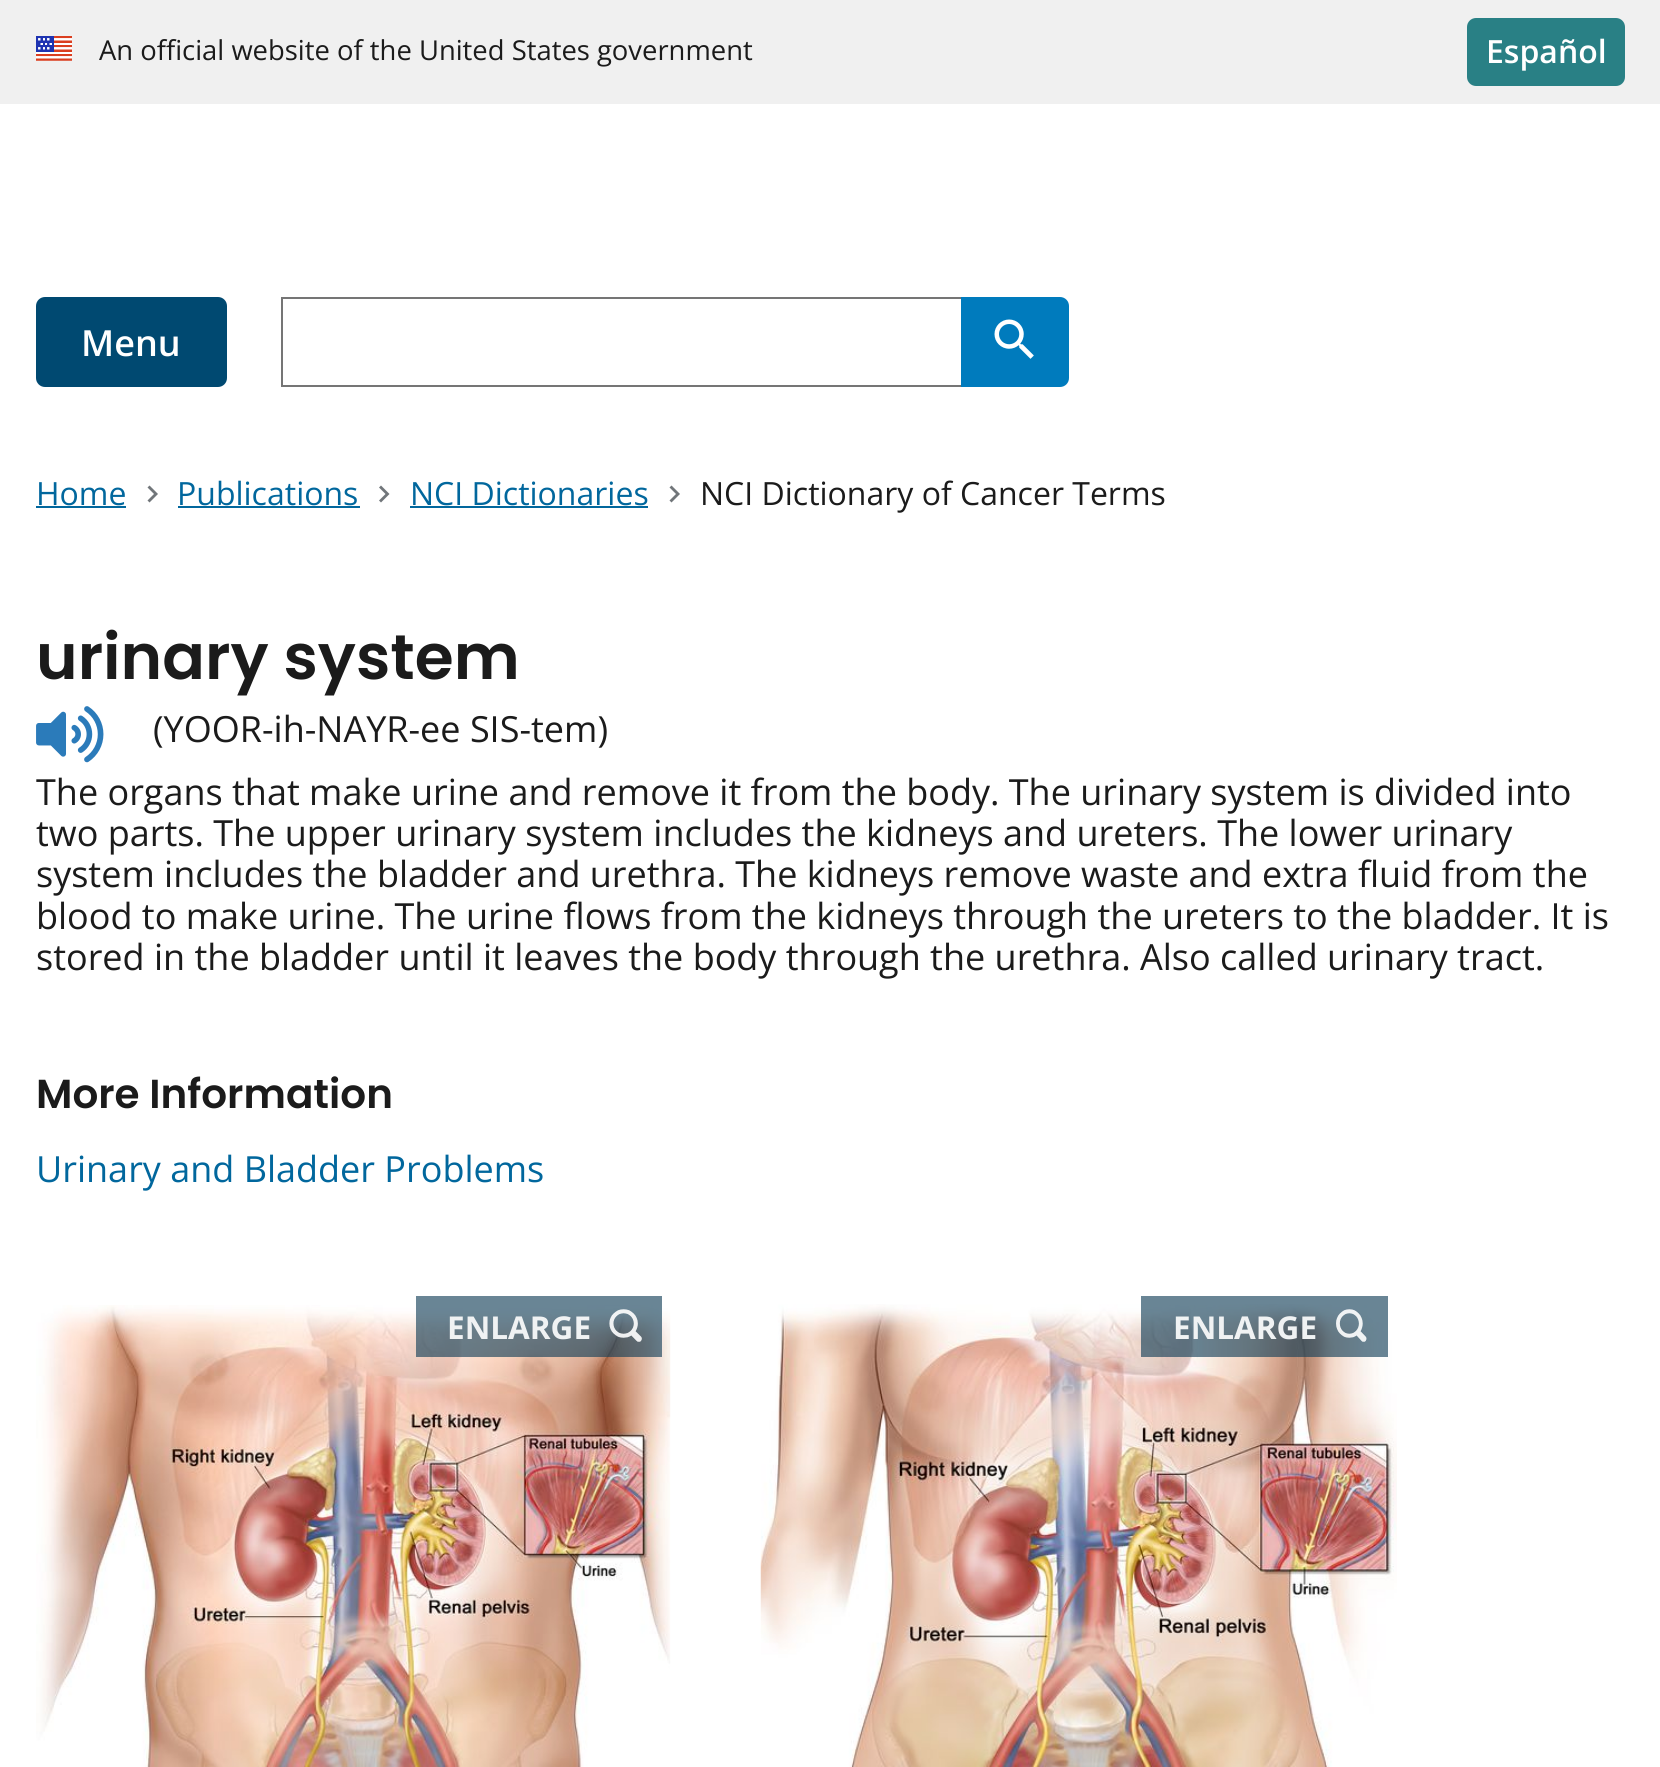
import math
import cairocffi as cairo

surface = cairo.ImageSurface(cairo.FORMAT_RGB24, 1660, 1767)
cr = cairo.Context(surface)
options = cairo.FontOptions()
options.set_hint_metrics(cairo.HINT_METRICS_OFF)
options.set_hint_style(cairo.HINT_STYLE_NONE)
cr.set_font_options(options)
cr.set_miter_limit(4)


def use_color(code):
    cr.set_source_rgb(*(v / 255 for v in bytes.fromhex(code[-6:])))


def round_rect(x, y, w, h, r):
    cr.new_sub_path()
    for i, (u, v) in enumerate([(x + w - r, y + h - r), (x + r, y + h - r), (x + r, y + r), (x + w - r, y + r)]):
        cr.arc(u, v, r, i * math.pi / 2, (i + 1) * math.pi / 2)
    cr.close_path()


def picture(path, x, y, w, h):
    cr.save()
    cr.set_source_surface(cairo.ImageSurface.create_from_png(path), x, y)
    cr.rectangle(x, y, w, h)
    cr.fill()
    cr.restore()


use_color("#ffffff")
cr.paint()
use_color("#f0f0f0")
cr.rectangle(0, 0, 1660, 104)
cr.fill()
picture("img1.png", 36, 36, 36, 25)
cr.select_font_face("Open Sans")
cr.set_font_size(27.4)
use_color("#1b1b1b")
cr.move_to(99, 60)
cr.show_text("An official website of the United States government")
use_color("#298085")
round_rect(1467, 18, 158, 68, 9)
cr.fill()
cr.select_font_face("Open Sans SemiBold")
cr.set_font_size(32)
use_color("#ffffff")
cr.move_to(1486, 63)
cr.show_text("Español")
use_color("#004971")
round_rect(36, 297, 191, 90, 9)
cr.fill()
cr.set_font_size(36)
use_color("#ffffff")
cr.move_to(81, 356)
cr.show_text("Menu")
use_color("#757575")
cr.rectangle(281, 297, 680, 2)
cr.fill()
cr.rectangle(281, 385, 680, 2)
cr.fill()
cr.rectangle(281, 297, 2, 90)
cr.fill()
use_color("#007bbd")
cr.new_path()
cr.move_to(961, 297)
cr.line_to(1060, 297)
cr.curve_to(1065, 297, 1069, 301, 1069, 306)
cr.line_to(1069, 378)
cr.curve_to(1069, 383, 1065, 387, 1060, 387)
cr.line_to(961, 387)
cr.close_path()
cr.fill()
picture("img2.png", 994, 319, 40, 40)
cr.select_font_face("Open Sans")
cr.set_font_size(32)
use_color("#01679d")
cr.move_to(36, 505)
cr.show_text("Home")
cr.rectangle(36, 506, 90, 2)
cr.fill()
use_color("#71767a")
cr.new_path()
cr.move_to(149.5, 485.5)
cr.line_to(147.5, 487.5)
cr.line_to(154, 494)
cr.line_to(147.5, 500.5)
cr.line_to(149.5, 502.5)
cr.line_to(158, 494)
cr.close_path()
cr.fill()
use_color("#01679d")
cr.move_to(177, 505)
cr.show_text("Publications")
cr.rectangle(178, 506, 182, 2)
cr.fill()
use_color("#71767a")
cr.new_path()
cr.move_to(381, 485.5)
cr.line_to(379, 487.5)
cr.line_to(385.5, 494)
cr.line_to(379, 500.5)
cr.line_to(381, 502.5)
cr.line_to(389.5, 494)
cr.close_path()
cr.fill()
use_color("#01679d")
cr.move_to(410, 505)
cr.show_text("NCI Dictionaries")
cr.rectangle(410, 506, 238, 2)
cr.fill()
use_color("#71767a")
cr.new_path()
cr.move_to(671.5, 485.5)
cr.line_to(669.5, 487.5)
cr.line_to(676, 494)
cr.line_to(669.5, 500.5)
cr.line_to(671.5, 502.5)
cr.line_to(680, 494)
cr.close_path()
cr.fill()
use_color("#1b1b1b")
cr.move_to(700, 505)
cr.show_text("NCI Dictionary of Cancer Terms")
cr.select_font_face("Poppins SemiBold")
cr.set_font_size(63)
cr.move_to(36, 679)
cr.show_text("urinary system")
picture("img3.png", 36, 706, 68, 57)
cr.select_font_face("Open Sans")
cr.set_font_size(36)
cr.move_to(153, 742)
cr.show_text("(YOOR-ih-NAYR-ee SIS-tem)")
cr.move_to(36, 805)
cr.show_text("The organs that make urine and remove it from the body. The urinary system is divided into")
cr.move_to(36, 846)
cr.show_text("two parts. The upper urinary system includes the kidneys and ureters. The lower urinary")
cr.move_to(36, 887)
cr.show_text("system includes the bladder and urethra. The kidneys remove waste and extra fluid from the")
cr.move_to(36, 929)
cr.show_text("blood to make urine. The urine flows from the kidneys through the ureters to the bladder. It is")
cr.move_to(36, 970)
cr.show_text("stored in the bladder until it leaves the body through the urethra. Also called urinary tract.")
cr.select_font_face("Poppins SemiBold")
cr.set_font_size(40.5)
cr.move_to(36, 1108)
cr.show_text("More Information")
cr.select_font_face("Open Sans")
cr.set_font_size(36)
use_color("#01679d")
cr.move_to(36, 1182)
cr.show_text("Urinary and Bladder Problems")
picture("img4.png", 36, 1305, 635, 462)
cr.set_source_rgba(0.071, 0.243, 0.345, 0.63)
cr.rectangle(416, 1296, 246, 61)
cr.fill()
cr.select_font_face("Open Sans", cairo.FONT_SLANT_NORMAL, cairo.FONT_WEIGHT_BOLD)
cr.set_font_size(31.5)
use_color("#f0f2f3")
cr.move_to(447, 1339)
cr.show_text("ENLARGE")
picture("img5.png", 609, 1309, 33, 33)
picture("img6.png", 760, 1304, 637, 463)
cr.set_source_rgba(0.071, 0.243, 0.345, 0.63)
cr.rectangle(1141, 1296, 247, 61)
cr.fill()
use_color("#f0f2f3")
cr.move_to(1173, 1339)
cr.show_text("ENLARGE")
picture("img7.png", 1336, 1309, 31, 33)
surface.write_to_png("result.png")
